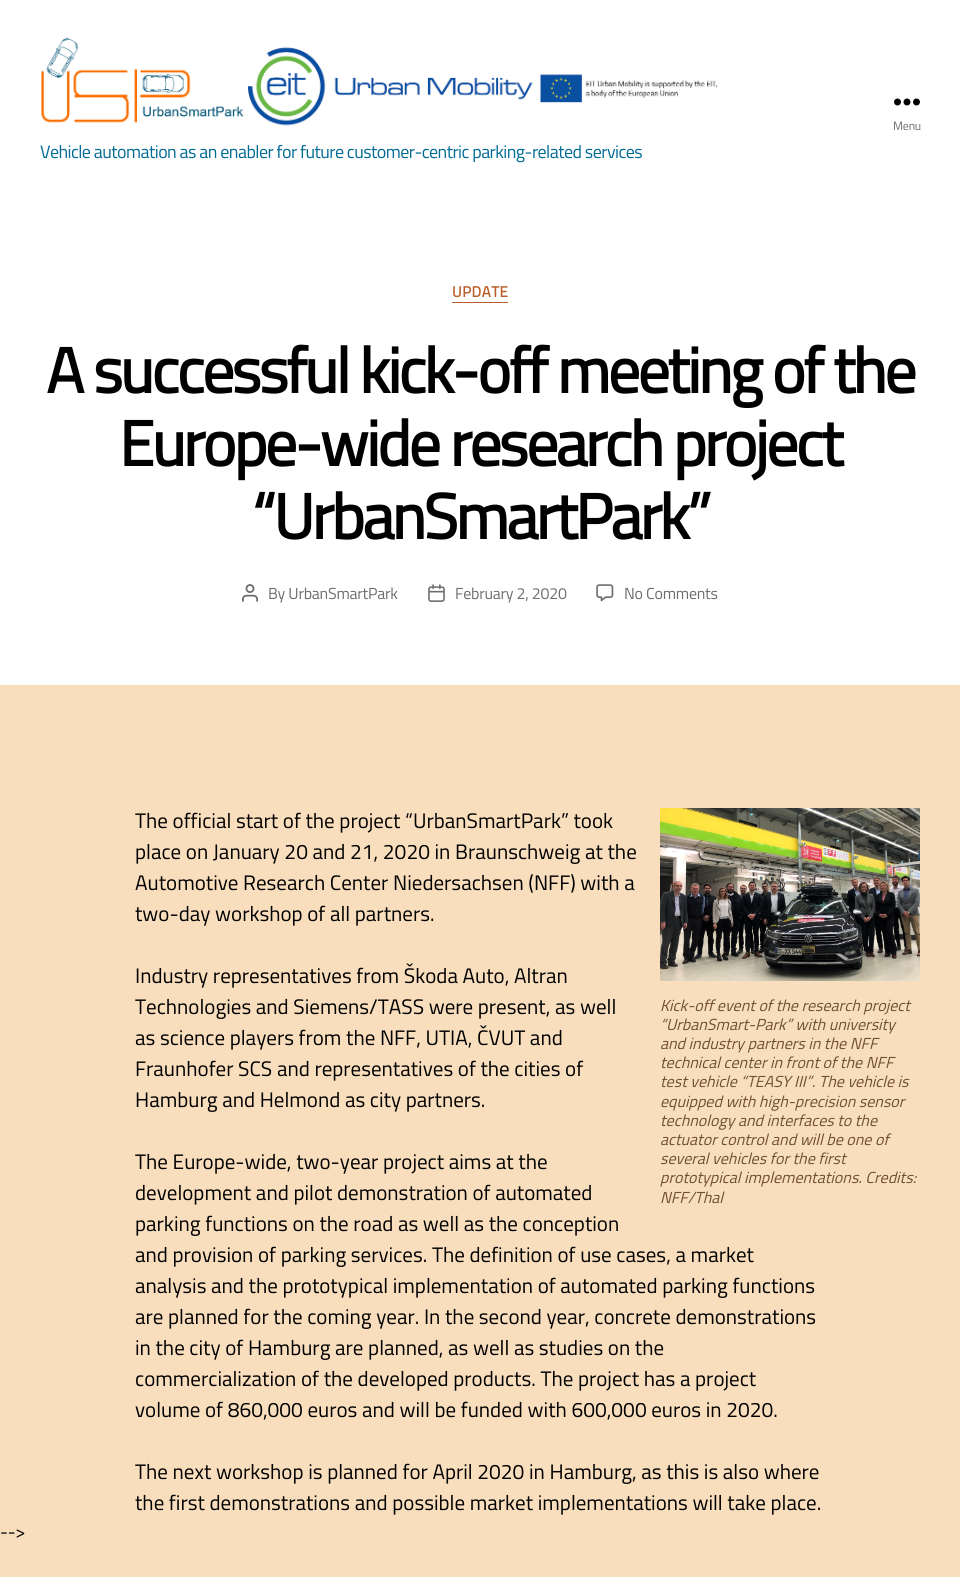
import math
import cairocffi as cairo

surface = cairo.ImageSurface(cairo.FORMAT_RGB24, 960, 1577)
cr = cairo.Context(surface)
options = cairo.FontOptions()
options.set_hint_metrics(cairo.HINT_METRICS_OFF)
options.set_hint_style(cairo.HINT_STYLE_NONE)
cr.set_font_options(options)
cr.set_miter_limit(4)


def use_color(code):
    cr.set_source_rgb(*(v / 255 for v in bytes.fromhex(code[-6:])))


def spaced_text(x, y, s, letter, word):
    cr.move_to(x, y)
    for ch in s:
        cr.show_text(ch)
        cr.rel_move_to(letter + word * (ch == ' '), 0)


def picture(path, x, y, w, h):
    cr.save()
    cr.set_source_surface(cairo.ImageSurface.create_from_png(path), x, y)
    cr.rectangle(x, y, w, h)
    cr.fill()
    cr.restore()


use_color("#f9debd")
cr.paint()
use_color("#ffffff")
cr.rectangle(0, 0, 960, 685)
cr.fill()
picture("img1.png", 894, 98, 26, 8)
cr.select_font_face("Titillium Web")
cr.set_font_size(12)
use_color("#6d6d6d")
spaced_text(893, 130, "Menu", -0.25, 0)
picture("img2.png", 41, 38, 677, 88)
cr.set_font_size(18)
use_color("#006b95")
spaced_text(40, 158, "Vehicle automation as an enabler for future customer-centric parking-related services", -0.55, 0)
use_color("#b95c27")
cr.rectangle(452, 302, 56, 1)
cr.fill()
cr.select_font_face("Titillium Web", cairo.FONT_SLANT_NORMAL, cairo.FONT_WEIGHT_BOLD)
cr.set_font_size(15)
spaced_text(452, 297, "UPDATE", 0.5, 0)
cr.set_font_size(64)
use_color("#000000")
spaced_text(46, 393, "A successful kick-off meeting of the", -2.65, 0)
spaced_text(119, 466, "Europe-wide research project", -2.65, 0)
spaced_text(252, 539, "“UrbanSmartPark”", -2.65, 0)
picture("img3.png", 242, 584, 16, 18)
cr.select_font_face("Titillium Web")
cr.set_font_size(16)
use_color("#6d6d6d")
spaced_text(268, 599, "By UrbanSmartPark", -0.25, 0)
picture("img4.png", 428, 584, 17, 18)
spaced_text(455, 599, "February 2, 2020", -0.25, 0)
picture("img5.png", 596, 584, 18, 18)
spaced_text(624, 599, "No Comments", -0.25, 0)
cr.set_font_size(21)
use_color("#000000")
cr.move_to(135, 828)
cr.show_text("The official start of the project “UrbanSmartPark” took")
cr.move_to(135, 859)
cr.show_text("place on January 20 and 21, 2020 in Braunschweig at the")
cr.move_to(135, 890)
cr.show_text("Automotive Research Center Niedersachsen (NFF) with a")
cr.move_to(135, 921)
cr.show_text("two-day workshop of all partners.")
cr.move_to(135, 983)
cr.show_text("Industry representatives from Škoda Auto, Altran")
cr.move_to(135, 1014)
cr.show_text("Technologies and Siemens/TASS were present, as well")
cr.move_to(135, 1045)
cr.show_text("as science players from the NFF, UTIA, ČVUT and")
cr.move_to(135, 1076)
cr.show_text("Fraunhofer SCS and representatives of the cities of")
cr.move_to(135, 1107)
cr.show_text("Hamburg and Helmond as city partners.")
cr.move_to(135, 1169)
cr.show_text("The Europe-wide, two-year project aims at the")
cr.move_to(135, 1200)
cr.show_text("development and pilot demonstration of automated")
cr.move_to(135, 1231)
cr.show_text("parking functions on the road as well as the conception")
cr.move_to(135, 1262)
cr.show_text("and provision of parking services. The definition of use cases, a market")
cr.move_to(135, 1293)
cr.show_text("analysis and the prototypical implementation of automated parking functions")
cr.move_to(135, 1324)
cr.show_text("are planned for the coming year. In the second year, concrete demonstrations")
cr.move_to(135, 1355)
cr.show_text("in the city of Hamburg are planned, as well as studies on the")
cr.move_to(135, 1386)
cr.show_text("commercialization of the developed products. The project has a project")
cr.move_to(135, 1417)
cr.show_text("volume of 860,000 euros and will be funded with 600,000 euros in 2020.")
cr.move_to(135, 1479)
cr.show_text("The next workshop is planned for April 2020 in Hamburg, as this is also where")
cr.move_to(135, 1510)
cr.show_text("the first demonstrations and possible market implementations will take place.")
picture("img6.png", 660, 808, 260, 173)
cr.select_font_face("Titillium Web", cairo.FONT_SLANT_ITALIC)
cr.set_font_size(16)
use_color("#6f512e")
cr.move_to(660, 1011)
cr.show_text("Kick-off event of the research project")
cr.move_to(660, 1030)
cr.show_text("“UrbanSmart-Park” with university")
cr.move_to(660, 1049)
cr.show_text("and industry partners in the NFF")
cr.move_to(660, 1068)
cr.show_text("technical center in front of the NFF")
cr.move_to(660, 1087)
cr.show_text("test vehicle “TEASY III”. The vehicle is")
cr.move_to(660, 1107)
cr.show_text("equipped with high-precision sensor")
cr.move_to(660, 1126)
cr.show_text("technology and interfaces to the")
cr.move_to(660, 1145)
cr.show_text("actuator control and will be one of")
cr.move_to(660, 1164)
cr.show_text("several vehicles for the first")
cr.move_to(660, 1183)
cr.show_text("prototypical implementations. Credits:")
cr.move_to(660, 1203)
cr.show_text("NFF/Thal")
cr.select_font_face("Titillium Web")
cr.set_font_size(18)
use_color("#000000")
spaced_text(0, 1538, "-->", -0.25, 0)
surface.write_to_png("result.png")
